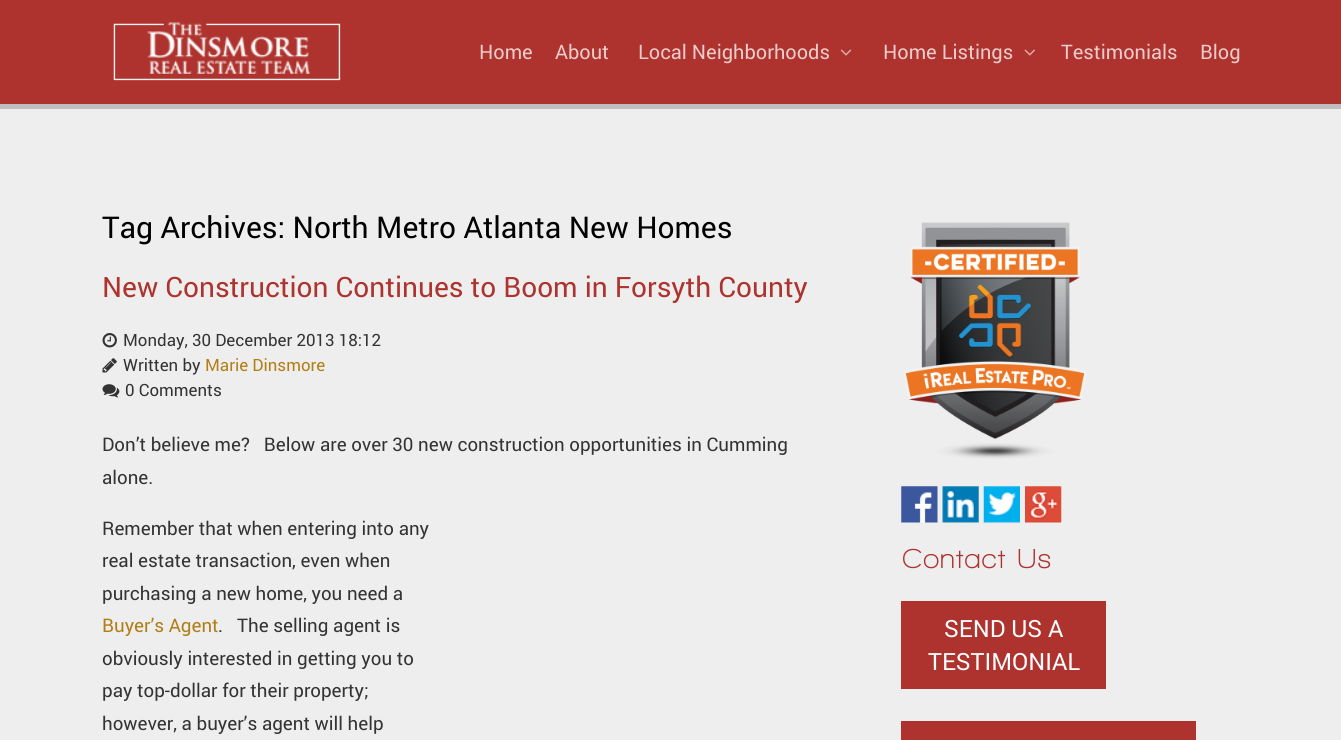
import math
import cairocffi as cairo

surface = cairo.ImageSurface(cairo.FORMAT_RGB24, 1341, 740)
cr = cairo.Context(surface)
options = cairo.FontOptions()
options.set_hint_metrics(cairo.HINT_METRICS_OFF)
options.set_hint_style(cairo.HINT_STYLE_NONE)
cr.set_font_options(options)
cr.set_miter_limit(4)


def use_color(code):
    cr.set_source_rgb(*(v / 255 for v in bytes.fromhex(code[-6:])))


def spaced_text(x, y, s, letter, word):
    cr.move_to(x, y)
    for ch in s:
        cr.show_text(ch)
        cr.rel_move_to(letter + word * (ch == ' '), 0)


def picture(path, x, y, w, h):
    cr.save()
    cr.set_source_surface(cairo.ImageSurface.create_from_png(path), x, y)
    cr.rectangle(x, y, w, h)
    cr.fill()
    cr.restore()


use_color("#eeeeee")
cr.paint()
use_color("#bebebe")
cr.rectangle(0, 104, 1341, 5)
cr.fill()
use_color("#ae322d")
cr.rectangle(0, 0, 1341, 104)
cr.fill()
picture("img1.png", 113, 22, 228, 59)
cr.select_font_face("Roboto")
cr.set_font_size(20)
use_color("#ebcccb")
cr.move_to(479, 59)
cr.show_text("Home")
cr.move_to(555, 59)
cr.show_text("About")
cr.move_to(638, 59)
cr.show_text("Local Neighborhoods")
picture("img2.png", 840, 49, 12, 7)
cr.move_to(883, 59)
cr.show_text("Home Listings")
picture("img3.png", 1024, 49, 11, 7)
cr.move_to(1061, 59)
cr.show_text("Testimonials")
cr.move_to(1200, 59)
cr.show_text("Blog")
cr.set_font_size(30)
use_color("#000000")
cr.move_to(102, 238)
cr.show_text("Tag Archives: North Metro Atlanta New Homes")
cr.set_font_size(28.1)
use_color("#ae322d")
cr.move_to(102, 297)
cr.show_text("New Construction Continues to Boom in Forsyth County")
picture("img4.png", 102, 333, 15, 15)
cr.set_font_size(16.9)
use_color("#333333")
cr.move_to(123, 346)
cr.show_text("Monday, 30 December 2013 18:12")
picture("img5.png", 102, 358, 15, 15)
cr.move_to(123, 371)
cr.show_text("Written by")
use_color("#b17e15")
cr.move_to(205, 371)
cr.show_text("Marie Dinsmore")
picture("img6.png", 102, 384, 18, 14)
use_color("#333333")
cr.move_to(125, 396)
cr.show_text("0 Comments")
cr.set_font_size(18.75)
cr.move_to(102, 451)
cr.show_text("Don’t believe me?   Below are over 30 new construction opportunities in Cumming")
cr.move_to(102, 484)
cr.show_text("alone.")
cr.move_to(102, 535)
cr.show_text("Remember that when entering into any")
cr.move_to(102, 567)
cr.show_text("real estate transaction, even when")
cr.move_to(102, 600)
cr.show_text("purchasing a new home, you need a")
use_color("#b17e15")
cr.move_to(102, 632)
cr.show_text("Buyer’s Agent")
use_color("#333333")
cr.move_to(218, 632)
cr.show_text(".")
cr.move_to(237, 632)
cr.show_text("The selling agent is")
cr.move_to(102, 665)
cr.show_text("obviously interested in getting you to")
cr.move_to(102, 697)
cr.show_text("pay top-dollar for their property;")
cr.move_to(102, 730)
cr.show_text("however, a buyer’s agent will help")
picture("img7.png", 903, 222, 183, 237)
picture("img8.png", 901, 486, 37, 37)
picture("img9.png", 942, 486, 37, 37)
picture("img10.png", 983, 486, 37, 37)
picture("img11.png", 1025, 486, 37, 37)
cr.select_font_face("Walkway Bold", cairo.FONT_SLANT_NORMAL, cairo.FONT_WEIGHT_BOLD)
cr.set_font_size(28.1)
use_color("#ae322d")
spaced_text(902, 568, "Contact Us", 1.25, 0)
cr.rectangle(901, 601, 205, 88)
cr.fill()
cr.select_font_face("Roboto")
cr.set_font_size(23.75)
use_color("#ffffff")
cr.move_to(944, 637)
cr.show_text("SEND US A")
cr.move_to(928, 670)
cr.show_text("TESTIMONIAL")
use_color("#ae322d")
cr.rectangle(901, 721, 295, 19)
cr.fill()
surface.write_to_png("result.png")
